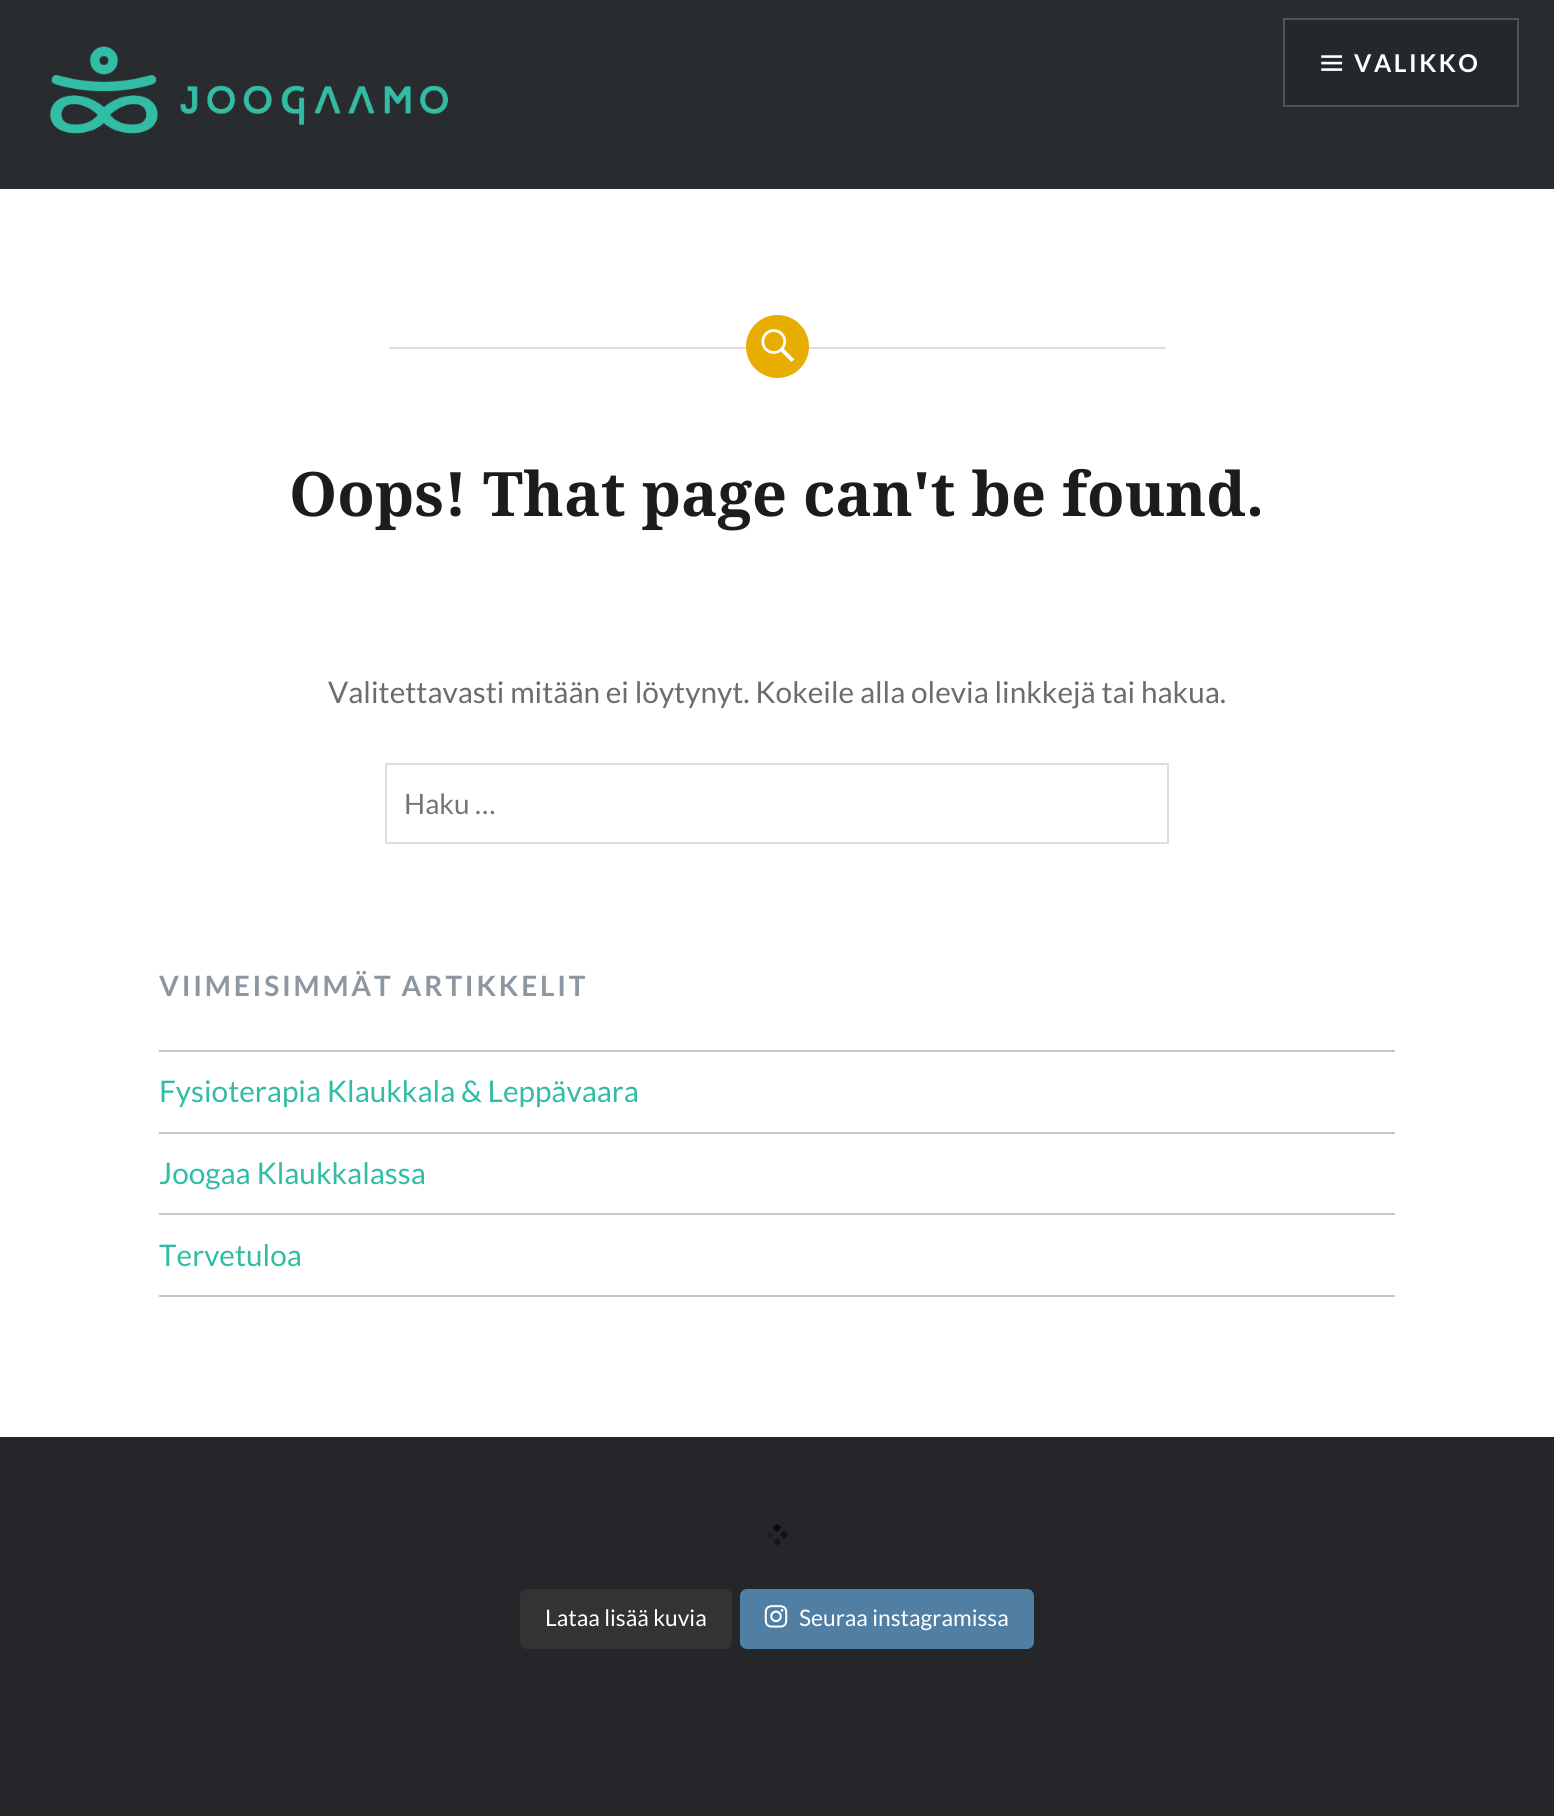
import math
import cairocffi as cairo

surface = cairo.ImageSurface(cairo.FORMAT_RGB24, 1554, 1816)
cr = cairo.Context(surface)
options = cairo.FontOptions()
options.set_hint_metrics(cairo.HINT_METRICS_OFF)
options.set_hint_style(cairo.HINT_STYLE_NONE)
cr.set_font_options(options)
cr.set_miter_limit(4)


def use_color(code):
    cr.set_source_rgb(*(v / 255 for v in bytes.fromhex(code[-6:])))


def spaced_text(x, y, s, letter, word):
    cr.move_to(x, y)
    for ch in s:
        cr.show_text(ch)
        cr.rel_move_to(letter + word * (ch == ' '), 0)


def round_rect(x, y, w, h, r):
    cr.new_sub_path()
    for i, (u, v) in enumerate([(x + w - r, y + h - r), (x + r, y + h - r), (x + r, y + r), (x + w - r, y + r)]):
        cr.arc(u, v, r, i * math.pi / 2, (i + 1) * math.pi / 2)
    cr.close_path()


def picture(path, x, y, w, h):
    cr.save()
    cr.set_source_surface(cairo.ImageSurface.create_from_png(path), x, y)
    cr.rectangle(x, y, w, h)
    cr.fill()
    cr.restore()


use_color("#242629")
cr.paint()
use_color("#ffffff")
cr.rectangle(0, 189, 1554, 1248)
cr.fill()
use_color("#292c2f")
cr.rectangle(0, 0, 1554, 189)
cr.fill()
picture("img1.png", 49, 46, 399, 88)
use_color("#25282a")
cr.rectangle(1284, 19, 234, 87)
cr.fill_preserve()
use_color("#515355")
cr.stroke()
picture("img2.png", 1321, 55, 22, 16)
cr.select_font_face("Lato", cairo.FONT_SLANT_NORMAL, cairo.FONT_WEIGHT_BOLD)
cr.set_font_size(24.5)
use_color("#ffffff")
spaced_text(1354, 72, "VALIKKO", 2.5, 0)
use_color("#e0e0e0")
cr.rectangle(389, 347, 777, 2)
cr.fill()
use_color("#e7ae01")
cr.arc(777.5, 346.5, 31.5, 0, 2 * math.pi)
cr.fill()
picture("img3.png", 761, 329, 34, 33)
cr.select_font_face("Noto Serif", cairo.FONT_SLANT_NORMAL, cairo.FONT_WEIGHT_BOLD)
cr.set_font_size(61.25)
use_color("#1a1c1e")
cr.move_to(289, 516)
cr.show_text("Oops! That page can't be found.")
cr.select_font_face("Lato")
cr.set_font_size(29.75)
use_color("#6a6c6e")
cr.move_to(328, 703)
cr.show_text("Valitettavasti mitään ei löytynyt. Kokeile alla olevia linkkejä tai hakua.")
cr.rectangle(386, 764, 782, 79)
use_color("#dddddd")
cr.stroke()
cr.set_font_size(28)
use_color("#757575")
cr.move_to(404, 814)
cr.show_text("Haku …")
cr.select_font_face("Lato", cairo.FONT_SLANT_NORMAL, cairo.FONT_WEIGHT_BOLD)
use_color("#8c97a2")
spaced_text(159, 996, "VIIMEISIMMÄT ARTIKKELIT", 2.8, 0)
use_color("#c0c9d3")
cr.rectangle(159, 1050, 1236, 2)
cr.fill()
cr.rectangle(159, 1132, 1236, 2)
cr.fill()
cr.select_font_face("Lato")
cr.set_font_size(29.75)
use_color("#32bca5")
cr.move_to(159, 1102)
cr.show_text("Fysioterapia Klaukkala & Leppävaara")
use_color("#c0c9d3")
cr.rectangle(159, 1213, 1236, 2)
cr.fill()
use_color("#32bca5")
cr.move_to(159, 1184)
cr.show_text("Joogaa Klaukkalassa")
use_color("#c0c9d3")
cr.rectangle(159, 1295, 1236, 2)
cr.fill()
use_color("#32bca5")
cr.move_to(159, 1266)
cr.show_text("Tervetuloa")
picture("img4.png", 766, 1524, 22, 22)
use_color("#333333")
round_rect(520, 1589, 212, 60, 7)
cr.fill()
cr.set_font_size(22.75)
use_color("#ffffff")
cr.move_to(545, 1626)
cr.show_text("Lataa lisää kuvia")
use_color("#517fa4")
round_rect(740, 1589, 294, 60, 7)
cr.fill()
picture("img5.png", 764, 1605, 24, 23)
use_color("#ffffff")
cr.move_to(799, 1626)
cr.show_text("Seuraa instagramissa")
surface.write_to_png("result.png")
